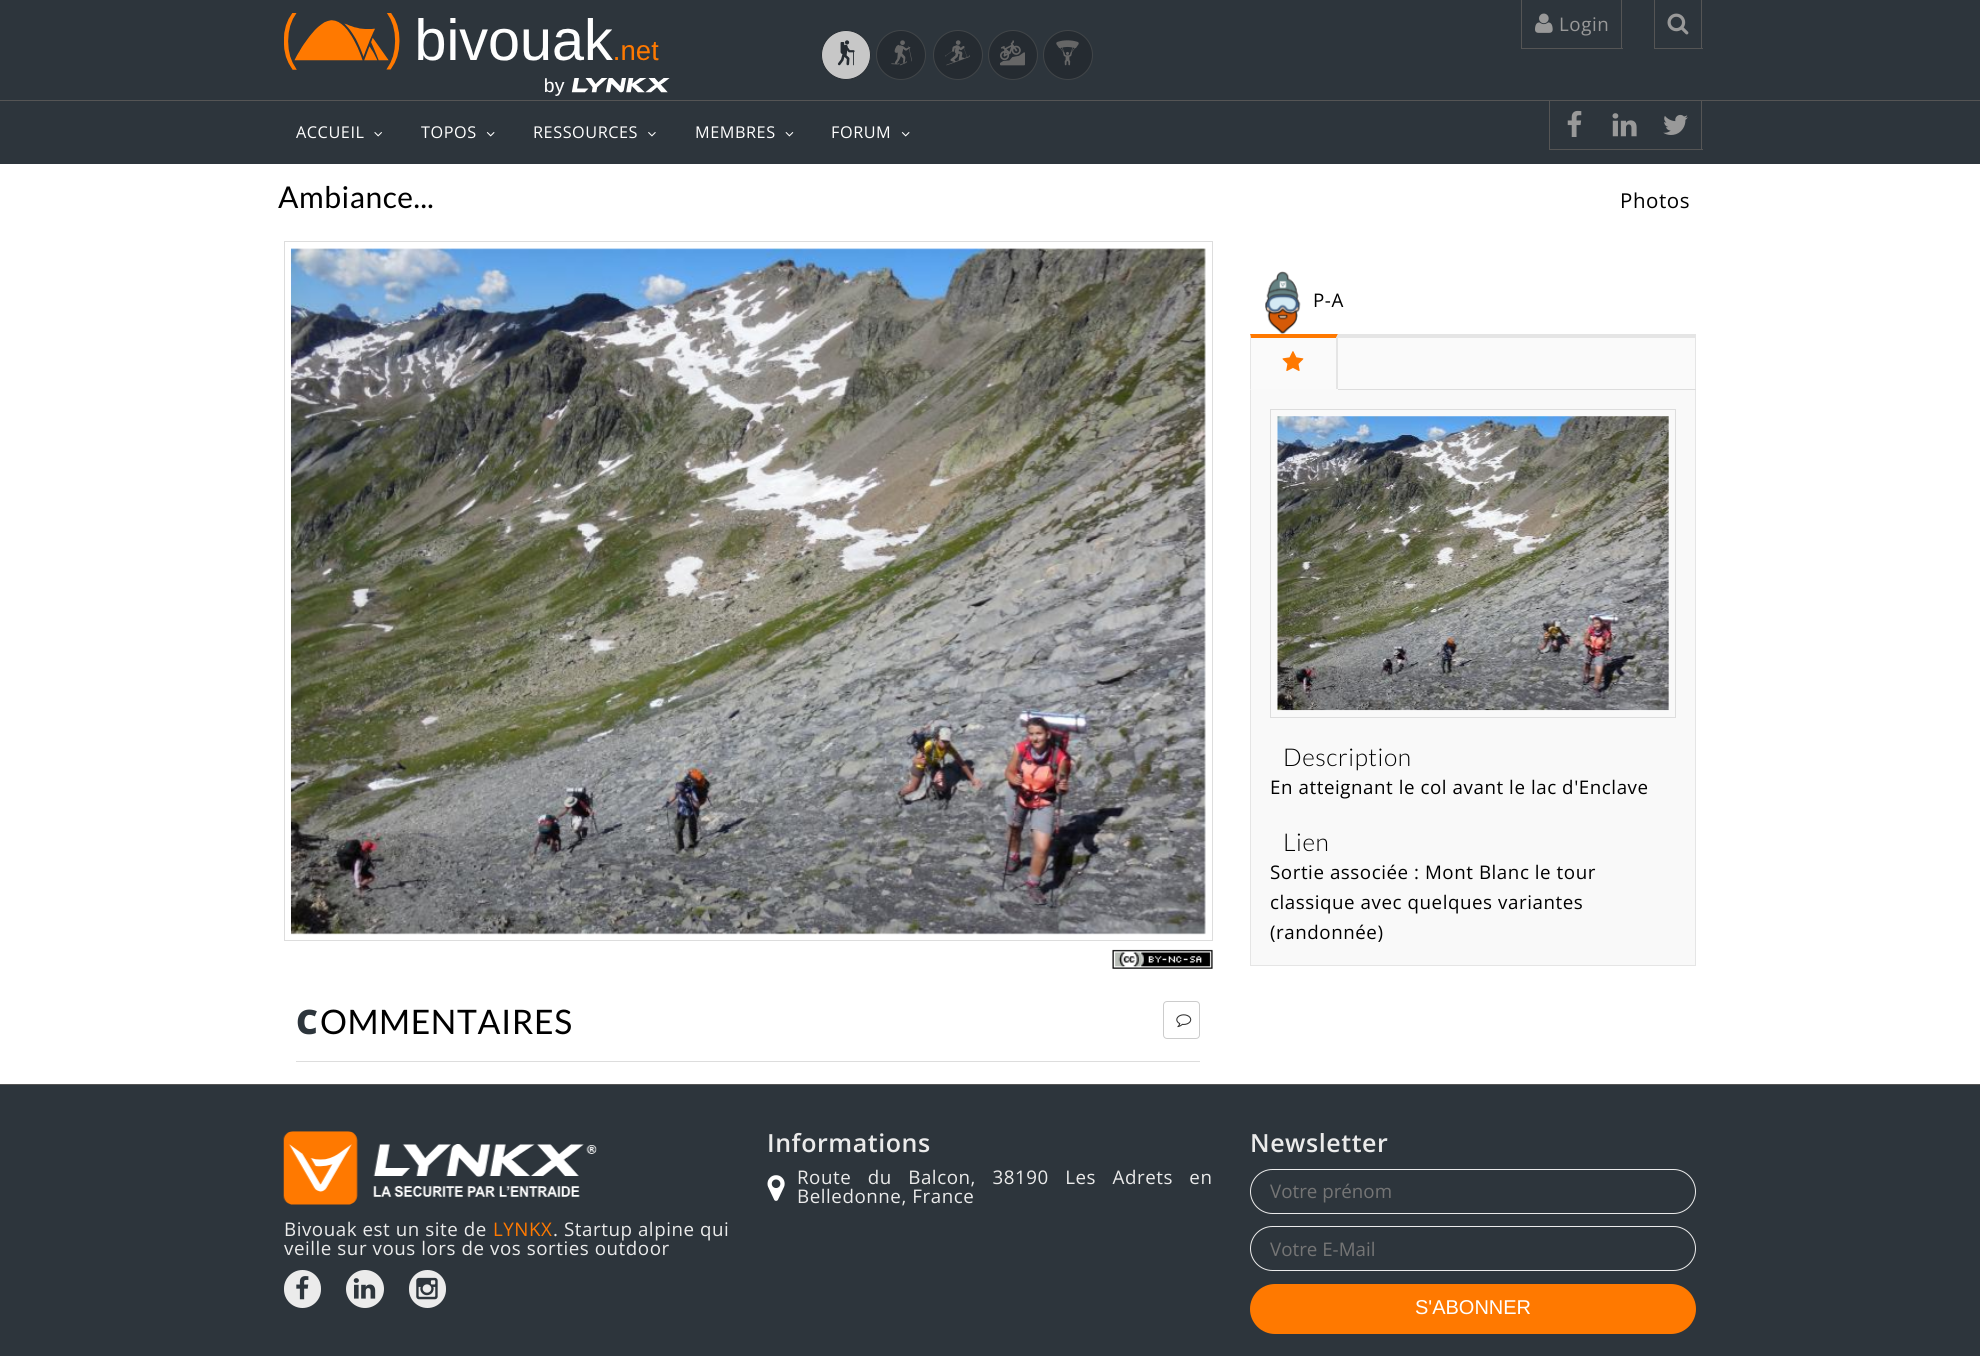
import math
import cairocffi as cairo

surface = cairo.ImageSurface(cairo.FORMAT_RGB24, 1980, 1356)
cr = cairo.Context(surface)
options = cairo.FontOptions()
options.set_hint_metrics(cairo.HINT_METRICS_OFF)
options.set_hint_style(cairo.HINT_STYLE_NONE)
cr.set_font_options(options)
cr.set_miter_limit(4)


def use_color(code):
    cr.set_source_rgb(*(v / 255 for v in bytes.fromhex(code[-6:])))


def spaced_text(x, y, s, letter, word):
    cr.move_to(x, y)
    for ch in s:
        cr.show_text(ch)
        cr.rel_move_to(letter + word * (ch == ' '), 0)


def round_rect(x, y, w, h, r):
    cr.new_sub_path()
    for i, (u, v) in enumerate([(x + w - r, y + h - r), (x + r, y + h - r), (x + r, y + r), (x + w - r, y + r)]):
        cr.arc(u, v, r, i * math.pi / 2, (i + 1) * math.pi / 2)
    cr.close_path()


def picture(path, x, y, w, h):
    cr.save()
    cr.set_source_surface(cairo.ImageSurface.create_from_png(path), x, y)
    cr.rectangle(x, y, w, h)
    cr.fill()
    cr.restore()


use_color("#ffffff")
cr.paint()
use_color("#2d353c")
cr.rectangle(0, 0, 1980, 100)
cr.fill()
picture("img1.png", 284, 13, 375, 57)
picture("img2.png", 545, 78, 125, 18)
use_color("#c7c7c7")
cr.arc(846, 55, 24.5, 0, 2 * math.pi)
cr.fill_preserve()
use_color("#252b31")
cr.set_line_width(1)
cr.stroke()
picture("img3.png", 837, 40, 18, 26)
cr.arc(901, 55, 24.5, 0, 2 * math.pi)
cr.fill_preserve()
use_color("#414548")
cr.stroke()
picture("img4.png", 891, 40, 21, 26)
use_color("#252b31")
cr.arc(958, 55, 24.5, 0, 2 * math.pi)
cr.fill_preserve()
use_color("#414548")
cr.stroke()
picture("img5.png", 945, 40, 25, 26)
use_color("#252b31")
cr.arc(1013, 55, 24.5, 0, 2 * math.pi)
cr.fill_preserve()
use_color("#414548")
cr.stroke()
picture("img6.png", 1000, 40, 25, 26)
use_color("#252b31")
cr.arc(1068, 55, 24.5, 0, 2 * math.pi)
cr.fill_preserve()
use_color("#414548")
cr.stroke()
picture("img7.png", 1056, 40, 23, 26)
use_color("#555555")
cr.rectangle(1621, 0, 1, 49)
cr.fill()
cr.rectangle(1521, 48, 102, 1)
cr.fill()
cr.rectangle(1521, 0, 1, 49)
cr.fill()
picture("img8.png", 1535, 13, 18, 20)
cr.select_font_face("Open Sans")
cr.set_font_size(18.75)
use_color("#999999")
spaced_text(1559, 31, "Login", 0.55, 0)
use_color("#555555")
cr.rectangle(1701, 0, 1, 49)
cr.fill()
cr.rectangle(1654, 48, 49, 1)
cr.fill()
cr.rectangle(1654, 0, 1, 49)
cr.fill()
picture("img9.png", 1667, 13, 22, 22)
use_color("#2d353c")
cr.rectangle(0, 101, 1980, 63)
cr.fill()
use_color("#555555")
cr.rectangle(0, 100, 1980, 1)
cr.fill()
cr.set_font_size(16.25)
use_color("#ffffff")
spaced_text(296, 138, "ACCUEIL", 0.55, 0)
picture("img10.png", 374, 132, 8, 5)
spaced_text(421, 138, "TOPOS", 0.55, 0)
picture("img11.png", 486, 132, 9, 5)
spaced_text(533, 138, "RESSOURCES", 0.55, 0)
picture("img12.png", 648, 132, 8, 5)
spaced_text(695, 138, "MEMBRES", 0.55, 0)
picture("img13.png", 785, 132, 9, 5)
spaced_text(831, 138, "FORUM", 0.55, 0)
picture("img11.png", 901, 132, 9, 5)
use_color("#555555")
cr.rectangle(1701, 101, 1, 49)
cr.fill()
cr.rectangle(1549, 149, 154, 1)
cr.fill()
cr.rectangle(1549, 101, 1, 49)
cr.fill()
picture("img14.png", 1567, 110, 15, 27)
picture("img15.png", 1612, 113, 25, 24)
picture("img16.png", 1663, 114, 25, 21)
cr.select_font_face("Lato")
cr.set_font_size(30)
use_color("#000000")
spaced_text(278, 208, "Ambiance...", 0.55, 0)
cr.select_font_face("Open Sans")
cr.set_font_size(20.5)
spaced_text(1620, 208, "Photos", 0.55, 0)
picture("img17.png", 1265, 271, 36, 63)
cr.set_font_size(18.75)
spaced_text(1313, 307, "P-A", 0.55, 0)
use_color("#fafafa")
cr.rectangle(1251, 338, 444, 51)
cr.fill()
use_color("#e5e5e5")
cr.rectangle(1250, 334, 446, 4)
cr.fill()
cr.rectangle(1695, 334, 1, 632)
cr.fill()
use_color("#dddddd")
cr.rectangle(1338, 389, 358, 1)
cr.fill()
use_color("#ff7900")
cr.new_path()
cr.move_to(1250, 334)
cr.line_to(1338, 334)
cr.line_to(1336, 338)
cr.line_to(1251, 338)
cr.close_path()
cr.fill()
use_color("#e5e5e5")
cr.new_path()
cr.move_to(1338, 334)
cr.line_to(1338, 390)
cr.line_to(1336, 389)
cr.line_to(1336, 338)
cr.close_path()
cr.fill()
use_color("#f9f9f9")
cr.rectangle(1250, 389, 88, 1)
cr.fill()
use_color("#e5e5e5")
cr.new_path()
cr.move_to(1250, 390)
cr.line_to(1250, 334)
cr.line_to(1251, 338)
cr.line_to(1251, 389)
cr.close_path()
cr.fill()
picture("img18.png", 1282, 351, 22, 20)
use_color("#f9f9f9")
cr.rectangle(1251, 390, 444, 575)
cr.fill()
use_color("#e5e5e5")
cr.rectangle(1250, 965, 446, 1)
cr.fill()
cr.rectangle(1250, 390, 1, 576)
cr.fill()
cr.rectangle(1270.5, 409.5, 405, 308)
use_color("#dddddd")
cr.stroke()
picture("img19.png", 1277, 416, 392, 295)
cr.select_font_face("Lato Light")
cr.set_font_size(24.5)
use_color("#000000")
spaced_text(1283, 766, "Description", 0.55, 0)
cr.select_font_face("Open Sans")
cr.set_font_size(18.75)
spaced_text(1270, 794, "En atteignant le col avant le lac d'Enclave", 0.55, 0)
cr.select_font_face("Lato Light")
cr.set_font_size(24.5)
spaced_text(1283, 851, "Lien", 0.55, 0)
cr.select_font_face("Open Sans")
cr.set_font_size(18.75)
spaced_text(1270, 879, "Sortie associée : Mont Blanc le tour", 0.55, 0)
spaced_text(1270, 909, "classique avec quelques variantes", 0.55, 0)
spaced_text(1270, 939, "(randonnée)", 0.55, 0)
cr.rectangle(284.5, 241.5, 928, 699)
use_color("#dddddd")
cr.stroke()
picture("img20.png", 291, 248, 915, 687)
picture("img21.png", 1112, 949, 101, 20)
cr.rectangle(296, 1061, 904, 1)
cr.fill()
cr.select_font_face("Noto Sans Black")
cr.set_font_size(33.75)
use_color("#2d353c")
spaced_text(296, 1034, "C", 0.55, 0)
cr.select_font_face("Lato")
use_color("#000000")
spaced_text(320, 1034, "OMMENTAIRES", 0.55, 0)
round_rect(1163.5, 1001.5, 36, 37, 3.5)
use_color("#cccccc")
cr.stroke()
picture("img22.png", 1176, 1014, 16, 14)
use_color("#2d353c")
cr.rectangle(0, 1085, 1980, 271)
cr.fill()
use_color("#555555")
cr.rectangle(0, 1084, 1980, 1)
cr.fill()
picture("img23.png", 283, 1131, 314, 74)
cr.select_font_face("Open Sans")
cr.set_font_size(18.75)
use_color("#ebebeb")
spaced_text(284, 1236, "Bivouak est un site de", 0.55, 0)
use_color("#ff7900")
spaced_text(493, 1236, "LYNKX", 0.55, 0)
use_color("#ebebeb")
spaced_text(553, 1236, ". Startup alpine qui", 0.55, 0)
spaced_text(284, 1255, "veille sur vous lors de vos sorties outdoor", 0.55, 0)
round_rect(284, 1270, 37, 38, 18.5)
cr.fill()
picture("img24.png", 296, 1276, 13, 24)
cr.arc(365, 1289, 19, 0, 2 * math.pi)
cr.fill()
picture("img25.png", 353, 1278, 23, 21)
round_rect(409, 1270, 37, 38, 18.5)
cr.fill()
picture("img26.png", 416, 1277, 22, 23)
cr.select_font_face("Open Sans SemiBold")
cr.set_font_size(25)
spaced_text(767, 1152, "Informations", 0.55, 0)
picture("img27.png", 767, 1175, 18, 26)
cr.select_font_face("Open Sans")
cr.set_font_size(18.75)
spaced_text(797, 1184, "Route du Balcon, 38190 Les Adrets en", 0.55, 11)
spaced_text(797, 1203, "Belledonne, France", 0.55, 0)
cr.select_font_face("Open Sans SemiBold")
cr.set_font_size(25)
spaced_text(1250, 1152, "Newsletter", 0.55, 0)
round_rect(1250.5, 1169.5, 445, 44, 22)
cr.stroke()
cr.select_font_face("Open Sans")
cr.set_font_size(18.75)
use_color("#757575")
cr.move_to(1270, 1198)
cr.show_text("Votre prénom")
round_rect(1250.5, 1226.5, 445, 44, 22)
use_color("#ebebeb")
cr.stroke()
use_color("#757575")
cr.move_to(1270, 1256)
cr.show_text("Votre E-Mail")
use_color("#ff7900")
round_rect(1250, 1284, 446, 50, 25)
cr.fill()
cr.select_font_face("Liberation Sans")
cr.set_font_size(20)
use_color("#ffffff")
cr.move_to(1415, 1314)
cr.show_text("S'ABONNER")
surface.write_to_png("result.png")
